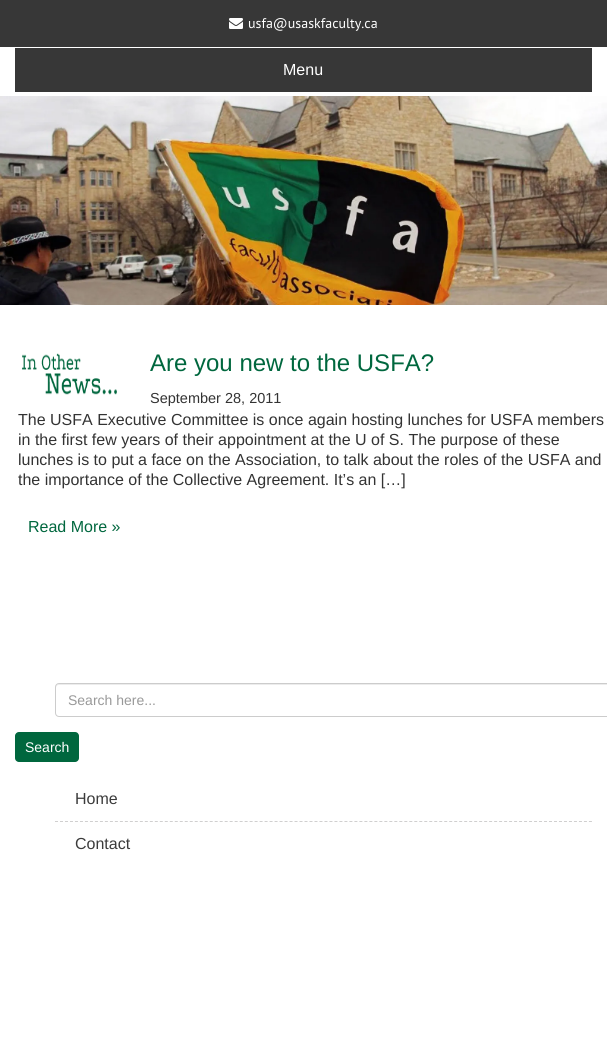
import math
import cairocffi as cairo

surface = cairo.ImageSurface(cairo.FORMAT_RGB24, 607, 1040)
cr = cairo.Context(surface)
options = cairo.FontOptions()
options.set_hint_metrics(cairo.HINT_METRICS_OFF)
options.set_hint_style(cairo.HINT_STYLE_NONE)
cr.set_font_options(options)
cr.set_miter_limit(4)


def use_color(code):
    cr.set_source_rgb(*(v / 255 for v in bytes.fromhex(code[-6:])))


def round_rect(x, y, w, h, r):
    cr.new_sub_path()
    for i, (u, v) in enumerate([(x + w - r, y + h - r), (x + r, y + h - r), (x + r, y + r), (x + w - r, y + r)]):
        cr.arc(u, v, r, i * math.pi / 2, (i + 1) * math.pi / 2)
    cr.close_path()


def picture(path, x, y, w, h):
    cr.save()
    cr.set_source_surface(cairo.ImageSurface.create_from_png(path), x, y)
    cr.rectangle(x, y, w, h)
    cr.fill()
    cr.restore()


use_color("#ffffff")
cr.paint()
use_color("#373737")
cr.rectangle(0, 0, 607, 47)
cr.fill()
picture("img1.png", 229, 18, 14, 11)
cr.select_font_face("PT Sans")
cr.set_font_size(14)
use_color("#ffffff")
cr.move_to(248, 28)
cr.show_text("usfa@usaskfaculty.ca")
use_color("#373737")
cr.rectangle(15, 48, 577, 44)
cr.fill()
cr.select_font_face("Liberation Sans")
cr.set_font_size(16)
use_color("#ffffff")
cr.move_to(283, 75)
cr.show_text("Menu")
picture("img2.png", 0, 96, 607, 209)
picture("img3.png", 22, 353, 95, 42)
cr.set_font_size(24)
use_color("#00673e")
cr.move_to(150, 371)
cr.show_text("Are you new to the USFA?")
cr.set_font_size(14.5)
use_color("#333333")
cr.move_to(150, 403)
cr.show_text("September 28, 2011")
cr.set_font_size(16)
cr.move_to(18, 425)
cr.show_text("The USFA Executive Committee is once again hosting lunches for USFA members")
cr.move_to(18, 445)
cr.show_text("in the first few years of their appointment at the U of S. The purpose of these")
cr.move_to(18, 465)
cr.show_text("lunches is to put a face on the Association, to talk about the roles of the USFA and")
cr.move_to(18, 485)
cr.show_text("the importance of the Collective Agreement. It’s an […]")
use_color("#00673e")
cr.move_to(28, 532)
cr.show_text("Read More »")
use_color("#ececec")
cr.new_path()
cr.move_to(59, 685)
cr.line_to(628, 685)
cr.curve_to(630, 685, 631, 686, 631, 688)
cr.line_to(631, 687)
cr.curve_to(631, 685, 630, 684, 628, 684)
cr.line_to(59, 684)
cr.curve_to(57, 684, 56, 685, 56, 687)
cr.line_to(56, 688)
cr.curve_to(56, 686, 57, 685, 59, 685)
cr.close_path()
cr.fill()
round_rect(55.5, 683.5, 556, 33, 3.5)
use_color("#cccccc")
cr.set_line_width(1)
cr.stroke()
cr.set_font_size(14)
use_color("#999999")
cr.move_to(68, 705)
cr.show_text("Search here...")
use_color("#00673e")
round_rect(15, 732, 64, 30, 4)
cr.fill()
use_color("#ffffff")
cr.move_to(25, 752)
cr.show_text("Search")
cr.new_path()
cr.move_to(55, 821.5)
cr.line_to(592, 821.5)
use_color("#d0cfcf")
cr.set_dash([3, 1.99])
cr.stroke()
cr.set_font_size(16)
use_color("#3b3b3b")
cr.move_to(75, 804)
cr.show_text("Home")
cr.move_to(75, 849)
cr.show_text("Contact")
surface.write_to_png("result.png")
